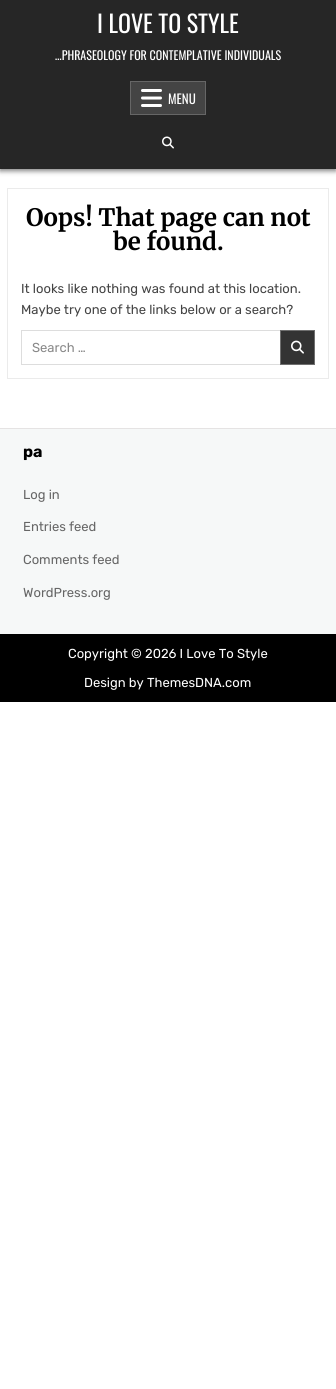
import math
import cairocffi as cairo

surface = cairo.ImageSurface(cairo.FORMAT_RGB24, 336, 1389)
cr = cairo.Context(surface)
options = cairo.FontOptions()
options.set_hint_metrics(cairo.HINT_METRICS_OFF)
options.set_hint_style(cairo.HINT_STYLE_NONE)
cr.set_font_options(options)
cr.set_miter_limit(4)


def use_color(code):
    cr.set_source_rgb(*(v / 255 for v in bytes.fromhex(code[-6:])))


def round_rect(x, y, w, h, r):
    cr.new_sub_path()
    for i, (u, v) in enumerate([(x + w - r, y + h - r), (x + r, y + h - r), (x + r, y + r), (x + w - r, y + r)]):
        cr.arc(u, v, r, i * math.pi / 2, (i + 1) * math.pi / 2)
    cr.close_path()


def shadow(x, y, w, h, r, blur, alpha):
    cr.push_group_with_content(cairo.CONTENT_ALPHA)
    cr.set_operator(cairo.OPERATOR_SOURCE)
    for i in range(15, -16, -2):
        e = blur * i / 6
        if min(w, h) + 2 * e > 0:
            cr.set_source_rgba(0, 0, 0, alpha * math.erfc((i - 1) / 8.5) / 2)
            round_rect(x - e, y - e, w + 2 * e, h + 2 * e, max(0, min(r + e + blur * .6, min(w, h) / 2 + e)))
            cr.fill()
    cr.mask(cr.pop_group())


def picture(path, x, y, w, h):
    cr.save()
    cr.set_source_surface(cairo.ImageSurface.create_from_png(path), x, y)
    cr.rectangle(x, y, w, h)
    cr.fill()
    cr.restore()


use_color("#ffffff")
cr.paint()
use_color("#000000")
shadow(0, 2, 336, 169, 0, 2.5, 0.5)
use_color("#262626")
cr.rectangle(0, 0, 336, 169)
cr.fill()
cr.select_font_face("Oswald")
cr.set_font_size(24)
use_color("#ffffff")
cr.move_to(97, 33)
cr.show_text("I LOVE TO STYLE")
cr.set_font_size(12)
cr.move_to(55, 60)
cr.show_text("…PHRASEOLOGY FOR CONTEMPLATIVE INDIVIDUALS")
use_color("#444444")
cr.rectangle(130.5, 81.5, 75, 33)
cr.fill_preserve()
use_color("#666666")
cr.set_line_width(1)
cr.stroke()
picture("img1.png", 141, 89, 21, 18)
cr.set_font_size(13)
use_color("#ffffff")
cr.move_to(168, 104)
cr.show_text("MENU")
picture("img2.png", 162, 136, 12, 13)
cr.rectangle(7.5, 188.5, 321, 190)
use_color("#ebebeb")
cr.stroke()
cr.select_font_face("Merriweather", cairo.FONT_SLANT_NORMAL, cairo.FONT_WEIGHT_BOLD)
cr.set_font_size(24)
use_color("#000000")
cr.move_to(26, 226)
cr.show_text("Oops! That page can not")
cr.move_to(113, 250)
cr.show_text("be found.")
cr.select_font_face("Rubik")
cr.set_font_size(13)
use_color("#444444")
cr.move_to(21, 293)
cr.show_text("It looks like nothing was found at this location.")
cr.move_to(21, 314)
cr.show_text("Maybe try one of the links below or a search?")
cr.rectangle(21.5, 330.5, 293, 34)
use_color("#dddddd")
cr.stroke()
use_color("#888888")
cr.move_to(32, 352)
cr.show_text("Search …")
use_color("#333333")
cr.rectangle(280.5, 330.5, 34, 34)
cr.fill_preserve()
use_color("#6f6f6f")
cr.stroke()
picture("img3.png", 291, 340, 13, 14)
use_color("#f6f8f8")
cr.rectangle(0, 429, 336, 205)
cr.fill()
use_color("#e5e3e3")
cr.rectangle(0, 428, 336, 1)
cr.fill()
cr.select_font_face("Rubik", cairo.FONT_SLANT_NORMAL, cairo.FONT_WEIGHT_BOLD)
cr.set_font_size(16)
use_color("#000000")
cr.move_to(23, 457)
cr.show_text("pa")
cr.select_font_face("Rubik")
cr.set_font_size(13)
use_color("#666666")
cr.move_to(23, 499)
cr.show_text("Log in")
cr.move_to(23, 531)
cr.show_text("Entries feed")
cr.move_to(23, 564)
cr.show_text("Comments feed")
cr.move_to(23, 597)
cr.show_text("WordPress.org")
use_color("#000000")
cr.rectangle(0, 634, 336, 68)
cr.fill()
use_color("#ffffff")
cr.move_to(68, 658)
cr.show_text("Copyright © 2026 I Love To Style")
cr.move_to(84, 687)
cr.show_text("Design by ThemesDNA.com")
surface.write_to_png("result.png")
